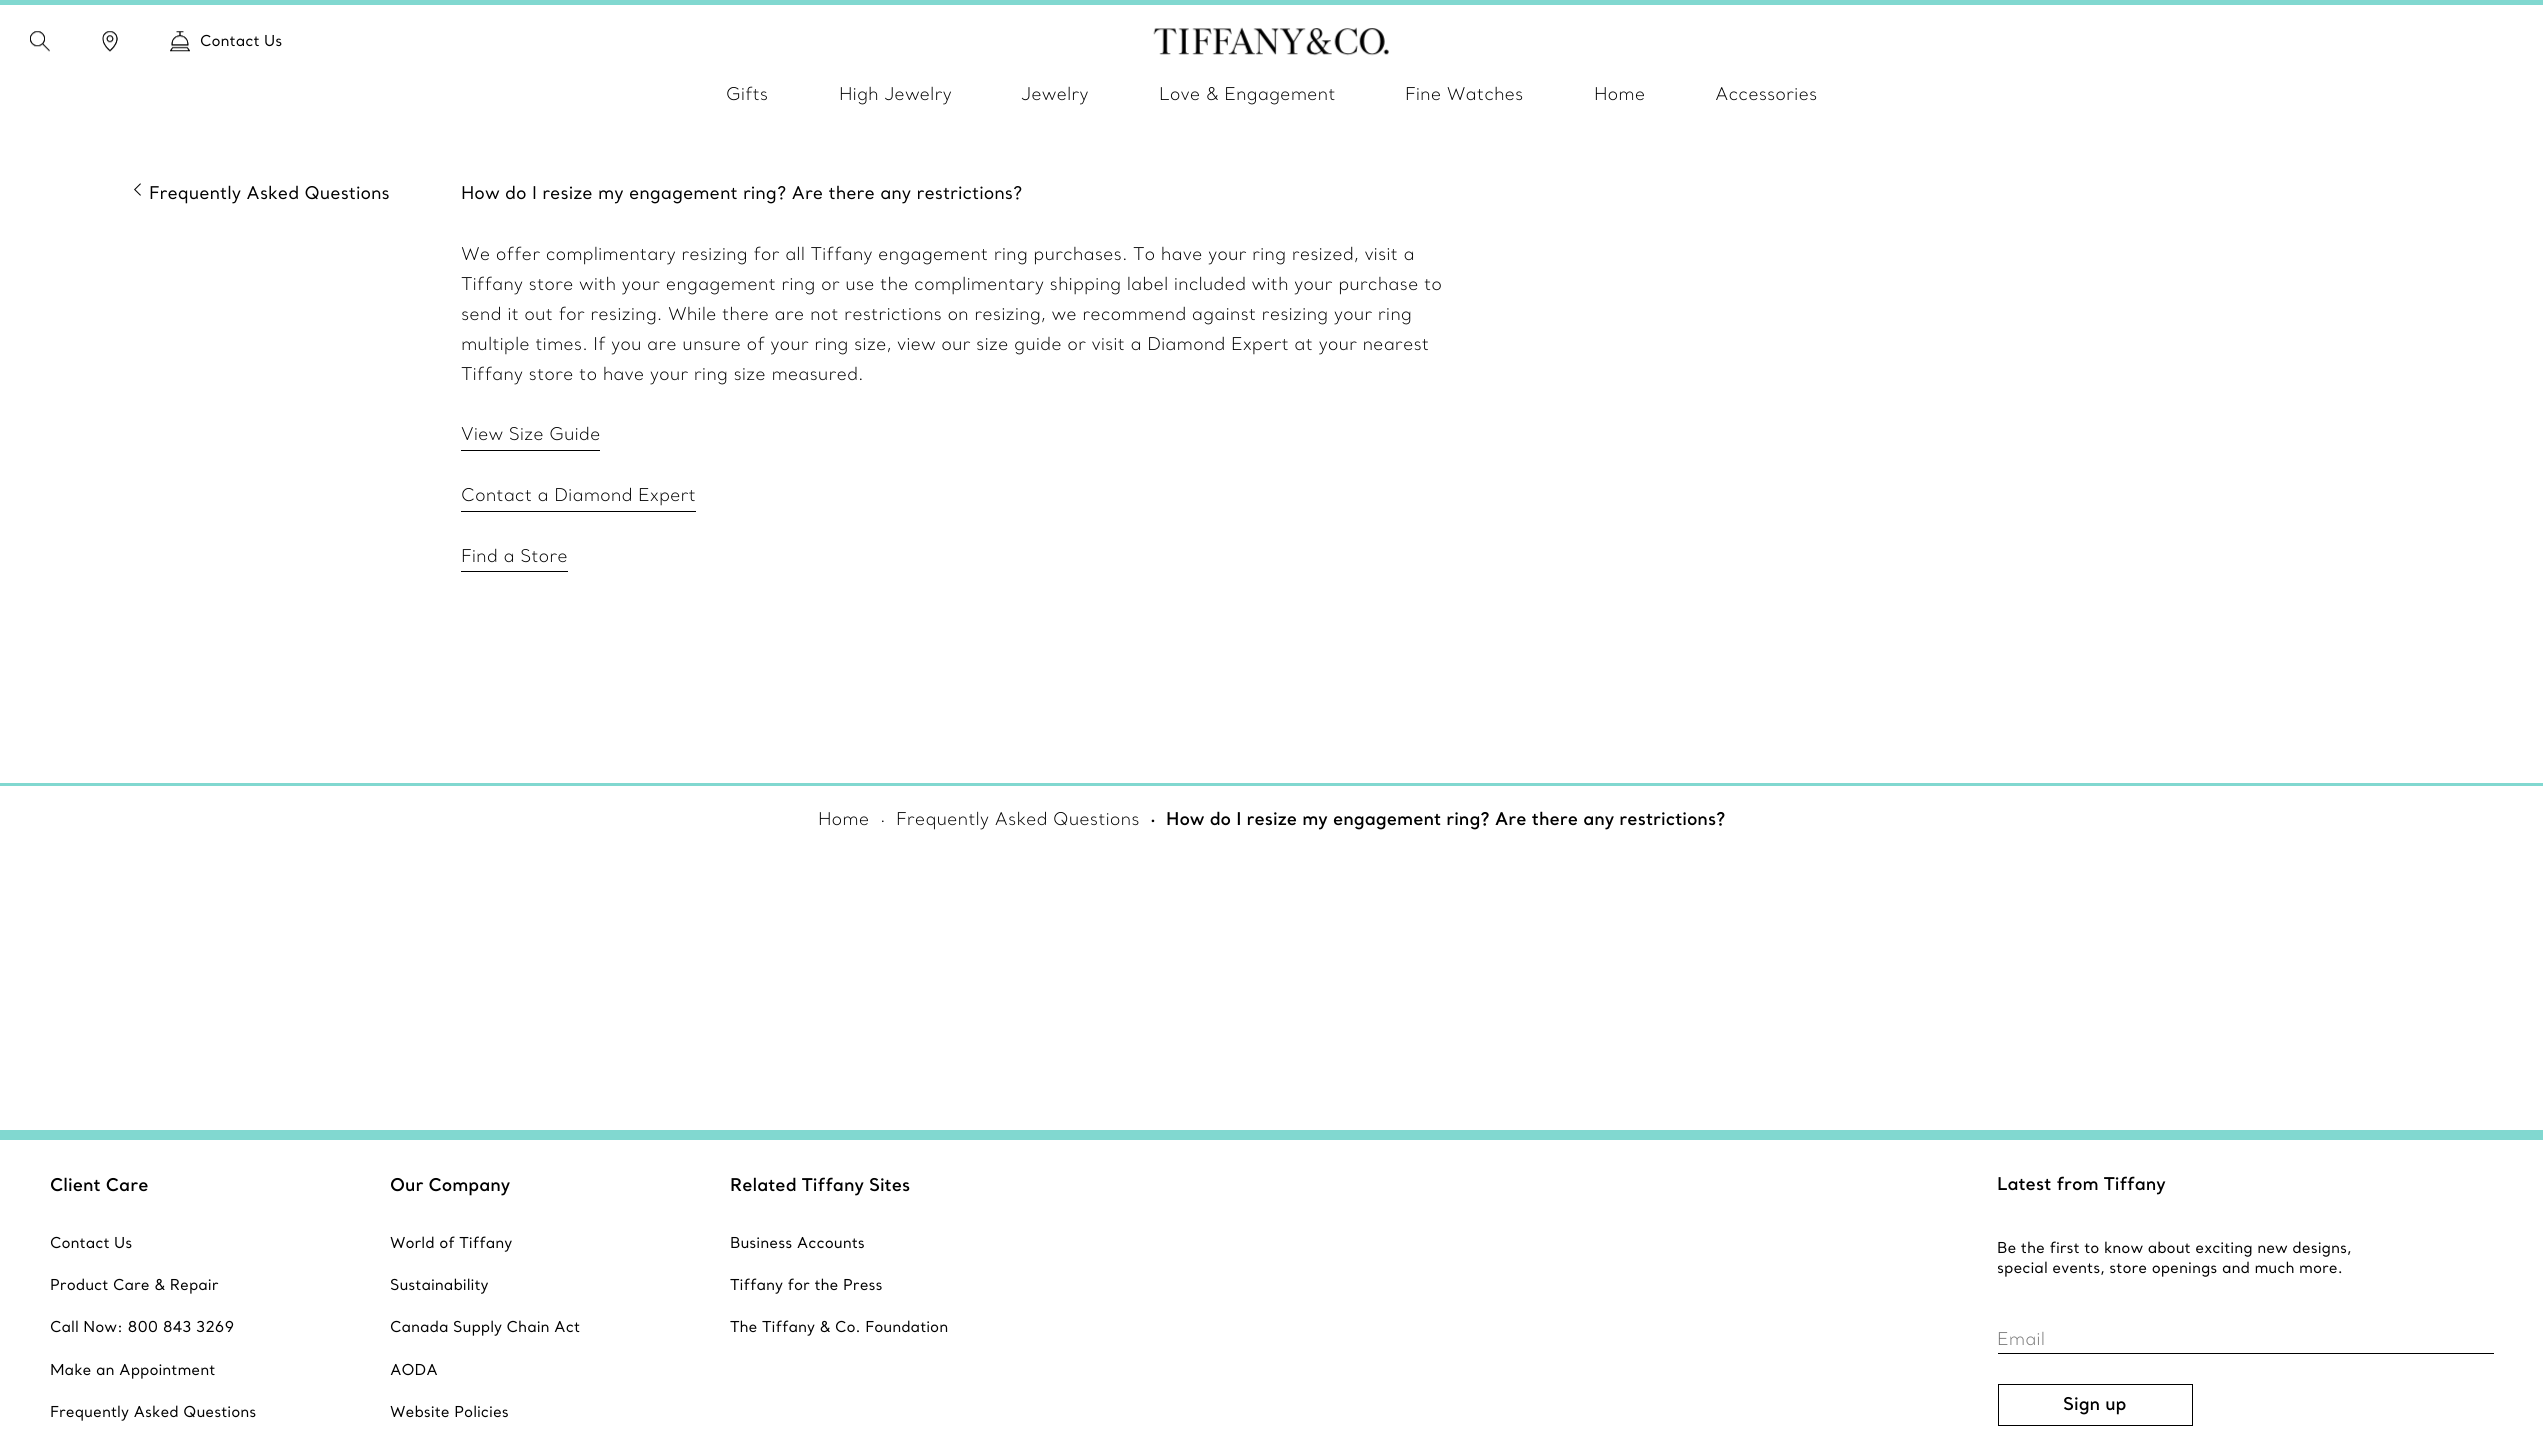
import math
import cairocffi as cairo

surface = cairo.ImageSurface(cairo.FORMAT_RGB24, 2543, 1434)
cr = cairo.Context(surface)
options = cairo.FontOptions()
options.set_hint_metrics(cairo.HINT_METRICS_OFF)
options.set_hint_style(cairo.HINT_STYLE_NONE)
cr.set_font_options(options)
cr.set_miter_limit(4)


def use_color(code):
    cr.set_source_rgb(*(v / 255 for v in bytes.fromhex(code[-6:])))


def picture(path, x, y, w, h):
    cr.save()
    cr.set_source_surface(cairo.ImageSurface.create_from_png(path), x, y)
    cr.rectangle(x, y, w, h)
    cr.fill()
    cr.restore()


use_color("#ffffff")
cr.paint()
use_color("#81d8d0")
cr.rectangle(0, 0, 2543, 5)
cr.fill()
picture("img1.png", 30, 31, 20, 21)
picture("img2.png", 102, 31, 16, 21)
picture("img3.png", 170, 31, 20, 21)
cr.select_font_face("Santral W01")
cr.set_font_size(15)
use_color("#000000")
cr.move_to(200, 46)
cr.show_text("Contact Us")
picture("img4.png", 1153, 27, 236, 29)
cr.select_font_face("Santral W01 Light")
cr.set_font_size(17.5)
cr.move_to(726, 100)
cr.show_text("Gifts")
cr.move_to(839, 100)
cr.show_text("High Jewelry")
cr.move_to(1021, 100)
cr.show_text("Jewelry")
cr.move_to(1159, 100)
cr.show_text("Love & Engagement")
cr.move_to(1405, 100)
cr.show_text("Fine Watches")
cr.move_to(1594, 100)
cr.show_text("Home")
cr.move_to(1715, 100)
cr.show_text("Accessories")
picture("img5.png", 134, 183, 7, 13)
cr.select_font_face("Santral W01")
cr.move_to(149, 199)
cr.show_text("Frequently Asked Questions")
cr.move_to(461, 199)
cr.show_text("How do I resize my engagement ring? Are there any restrictions?")
cr.select_font_face("Santral W01 Light")
cr.move_to(461, 260)
cr.show_text("We offer complimentary resizing for all Tiffany engagement ring purchases. To have your ring resized, visit a")
cr.move_to(461, 290)
cr.show_text("Tiffany store with your engagement ring or use the complimentary shipping label included with your purchase to")
cr.move_to(461, 320)
cr.show_text("send it out for resizing. While there are not restrictions on resizing, we recommend against resizing your ring")
cr.move_to(461, 350)
cr.show_text("multiple times. If you are unsure of your ring size, view our size guide or visit a Diamond Expert at your nearest")
cr.move_to(461, 380)
cr.show_text("Tiffany store to have your ring size measured.")
cr.rectangle(461, 450, 139, 1)
cr.fill()
cr.move_to(461, 440)
cr.show_text("View Size Guide")
cr.rectangle(461, 511, 235, 1)
cr.fill()
cr.move_to(461, 501)
cr.show_text("Contact a Diamond Expert")
cr.rectangle(461, 571, 107, 1)
cr.fill()
cr.move_to(461, 562)
cr.show_text("Find a Store")
use_color("#81d8d0")
cr.rectangle(0, 783, 2543, 3)
cr.fill()
use_color("#000000")
cr.move_to(818, 825)
cr.show_text("Home")
cr.move_to(880, 822)
cr.show_text(".")
cr.move_to(896, 825)
cr.show_text("Frequently Asked Questions")
cr.select_font_face("Santral W01 SemiBold")
cr.move_to(1150, 822)
cr.show_text(".")
cr.move_to(1166, 825)
cr.show_text("How do I resize my engagement ring? Are there any restrictions?")
use_color("#81d8d0")
cr.rectangle(0, 1130, 2543, 10)
cr.fill()
use_color("#000000")
cr.move_to(50, 1191)
cr.show_text("Client Care")
cr.select_font_face("Santral W01")
cr.set_font_size(15)
cr.move_to(50, 1248)
cr.show_text("Contact Us")
cr.move_to(50, 1290)
cr.show_text("Product Care & Repair")
cr.move_to(50, 1332)
cr.show_text("Call Now: 800 843 3269")
cr.move_to(50, 1375)
cr.show_text("Make an Appointment")
cr.move_to(50, 1417)
cr.show_text("Frequently Asked Questions")
cr.select_font_face("Santral W01 SemiBold")
cr.set_font_size(17.5)
cr.move_to(390, 1191)
cr.show_text("Our Company")
cr.select_font_face("Santral W01")
cr.set_font_size(15)
cr.move_to(390, 1248)
cr.show_text("World of Tiffany")
cr.move_to(390, 1290)
cr.show_text("Sustainability")
cr.move_to(390, 1332)
cr.show_text("Canada Supply Chain Act")
cr.move_to(390, 1375)
cr.show_text("AODA")
cr.move_to(390, 1417)
cr.show_text("Website Policies")
cr.select_font_face("Santral W01 SemiBold")
cr.set_font_size(17.5)
cr.move_to(730, 1191)
cr.show_text("Related Tiffany Sites")
cr.select_font_face("Santral W01")
cr.set_font_size(15)
cr.move_to(730, 1248)
cr.show_text("Business Accounts")
cr.move_to(730, 1290)
cr.show_text("Tiffany for the Press")
cr.move_to(730, 1332)
cr.show_text("The Tiffany & Co. Foundation")
cr.select_font_face("Santral W01 SemiBold")
cr.set_font_size(17.5)
cr.move_to(1997, 1190)
cr.show_text("Latest from Tiffany")
cr.select_font_face("Santral W01")
cr.set_font_size(15)
cr.move_to(1997, 1253)
cr.show_text("Be the first to know about exciting new designs,")
cr.move_to(1997, 1273)
cr.show_text("special events, store openings and much more.")
cr.select_font_face("Santral W01 Light")
cr.set_font_size(17.5)
use_color("#767676")
cr.move_to(1997, 1345)
cr.show_text("Email")
use_color("#000000")
cr.rectangle(1998, 1353, 496, 1)
cr.fill()
cr.rectangle(1998.5, 1384.5, 194, 41)
cr.set_line_width(1)
cr.stroke()
cr.select_font_face("Santral W01 SemiBold")
cr.move_to(2063, 1410)
cr.show_text("Sign up")
surface.write_to_png("result.png")
